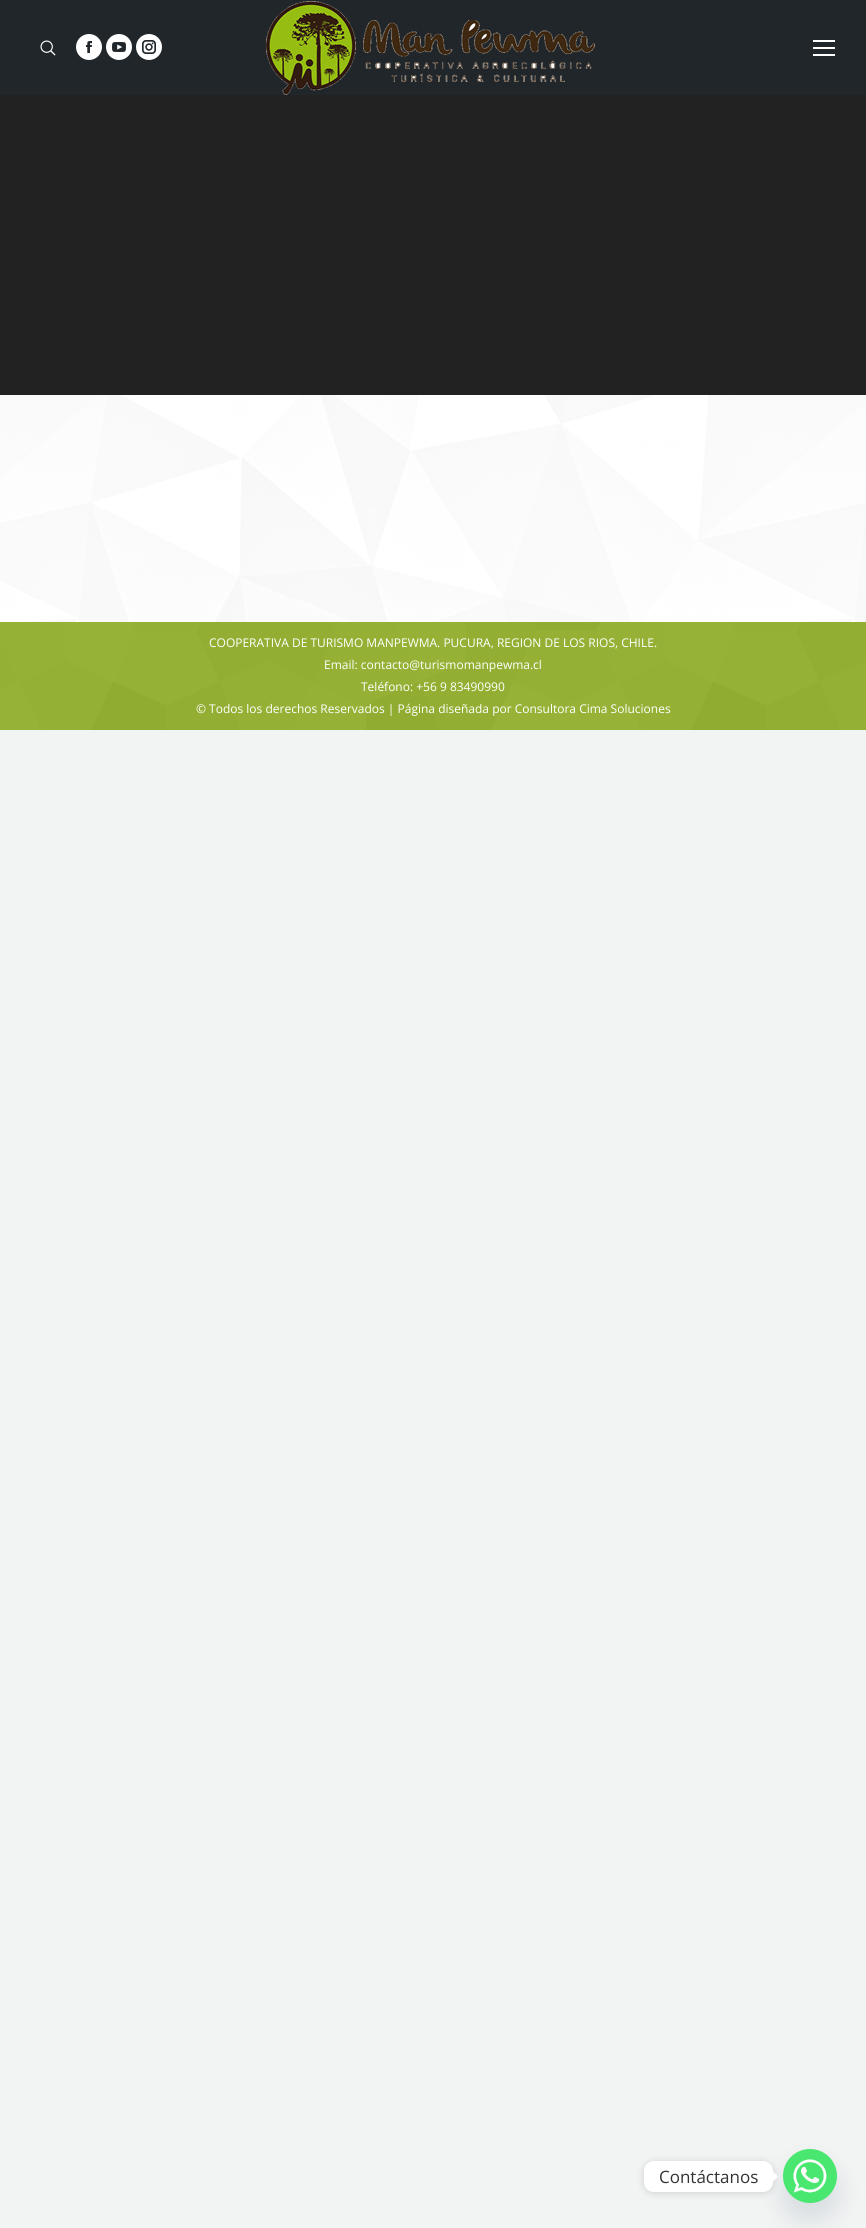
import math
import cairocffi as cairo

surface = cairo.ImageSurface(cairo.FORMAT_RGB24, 866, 2228)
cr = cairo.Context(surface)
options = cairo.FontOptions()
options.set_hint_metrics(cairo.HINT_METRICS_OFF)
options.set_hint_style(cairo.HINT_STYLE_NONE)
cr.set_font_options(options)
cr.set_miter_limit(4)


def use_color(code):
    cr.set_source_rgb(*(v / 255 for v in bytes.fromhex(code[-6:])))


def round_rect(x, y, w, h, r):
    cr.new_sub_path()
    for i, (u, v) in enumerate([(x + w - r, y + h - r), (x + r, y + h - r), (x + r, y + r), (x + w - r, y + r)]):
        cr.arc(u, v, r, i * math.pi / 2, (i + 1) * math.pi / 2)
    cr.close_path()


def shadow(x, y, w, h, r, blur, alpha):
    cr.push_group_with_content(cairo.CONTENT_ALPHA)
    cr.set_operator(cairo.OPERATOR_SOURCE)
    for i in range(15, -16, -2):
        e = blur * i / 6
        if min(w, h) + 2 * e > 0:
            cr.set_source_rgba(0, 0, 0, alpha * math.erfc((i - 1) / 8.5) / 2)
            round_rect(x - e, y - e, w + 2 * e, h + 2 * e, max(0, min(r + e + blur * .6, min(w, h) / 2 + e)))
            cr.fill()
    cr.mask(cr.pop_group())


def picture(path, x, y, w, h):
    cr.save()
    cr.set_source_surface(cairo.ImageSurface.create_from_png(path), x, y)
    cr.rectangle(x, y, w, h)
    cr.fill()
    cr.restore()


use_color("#f2f3f3")
cr.paint()
use_color("#ffffff")
cr.rectangle(0, 395, 866, 227)
cr.fill()
picture("img1.png", 0, 395, 866, 227)
use_color("#20262a")
cr.rectangle(0, 0, 866, 95)
cr.fill()
picture("img2.png", 40, 40, 16, 16)
use_color("#ffffff")
cr.arc(89, 47, 13, 0, 2 * math.pi)
cr.fill()
picture("img3.png", 86, 41, 6, 12)
cr.arc(119, 47, 13, 0, 2 * math.pi)
cr.fill()
picture("img4.png", 112, 42, 14, 10)
cr.arc(149, 47, 13, 0, 2 * math.pi)
cr.fill()
picture("img5.png", 142, 40, 14, 14)
picture("img6.png", 266, 1, 329, 94)
cr.rectangle(813, 47, 22, 2)
cr.fill()
cr.rectangle(813, 40, 22, 2)
cr.fill()
cr.rectangle(813, 54, 22, 2)
cr.fill()
use_color("#222222")
cr.rectangle(0, 95, 866, 300)
cr.fill()
use_color("#87aa0f")
cr.rectangle(0, 622, 866, 108)
cr.fill()
picture("img7.png", 0, 622, 866, 108)
cr.select_font_face("Open Sans")
cr.set_font_size(12)
use_color("#ffffff")
cr.move_to(209, 647)
cr.show_text("COOPERATIVA DE TURISMO MANPEWMA. PUCURA, REGION DE LOS RIOS, CHILE.")
cr.move_to(324, 669)
cr.show_text("Email: contacto@turismomanpewma.cl")
cr.move_to(361, 691)
cr.show_text("Teléfono: +56 9 83490990")
cr.move_to(196, 713)
cr.show_text("© Todos los derechos Reservados | Página diseñada por Consultora Cima Soluciones")
use_color("#49687e")
shadow(783, 2165, 54, 54, 27, 12, 0.16)
picture("img8.png", 783, 2149, 54, 54)
use_color("#000000")
shadow(644, 2162, 129, 31, 10, 4, 0.15)
use_color("#ffffff")
round_rect(644, 2161, 129, 31, 10)
cr.fill()
cr.set_font_size(17)
use_color("#333333")
cr.move_to(659, 2183)
cr.show_text("Contáctanos")
use_color("#ffffff")
cr.new_path()
cr.move_to(773, 2181.5)
cr.line_to(773, 2171.5)
cr.line_to(778, 2176.5)
cr.close_path()
cr.fill()
surface.write_to_png("result.png")
